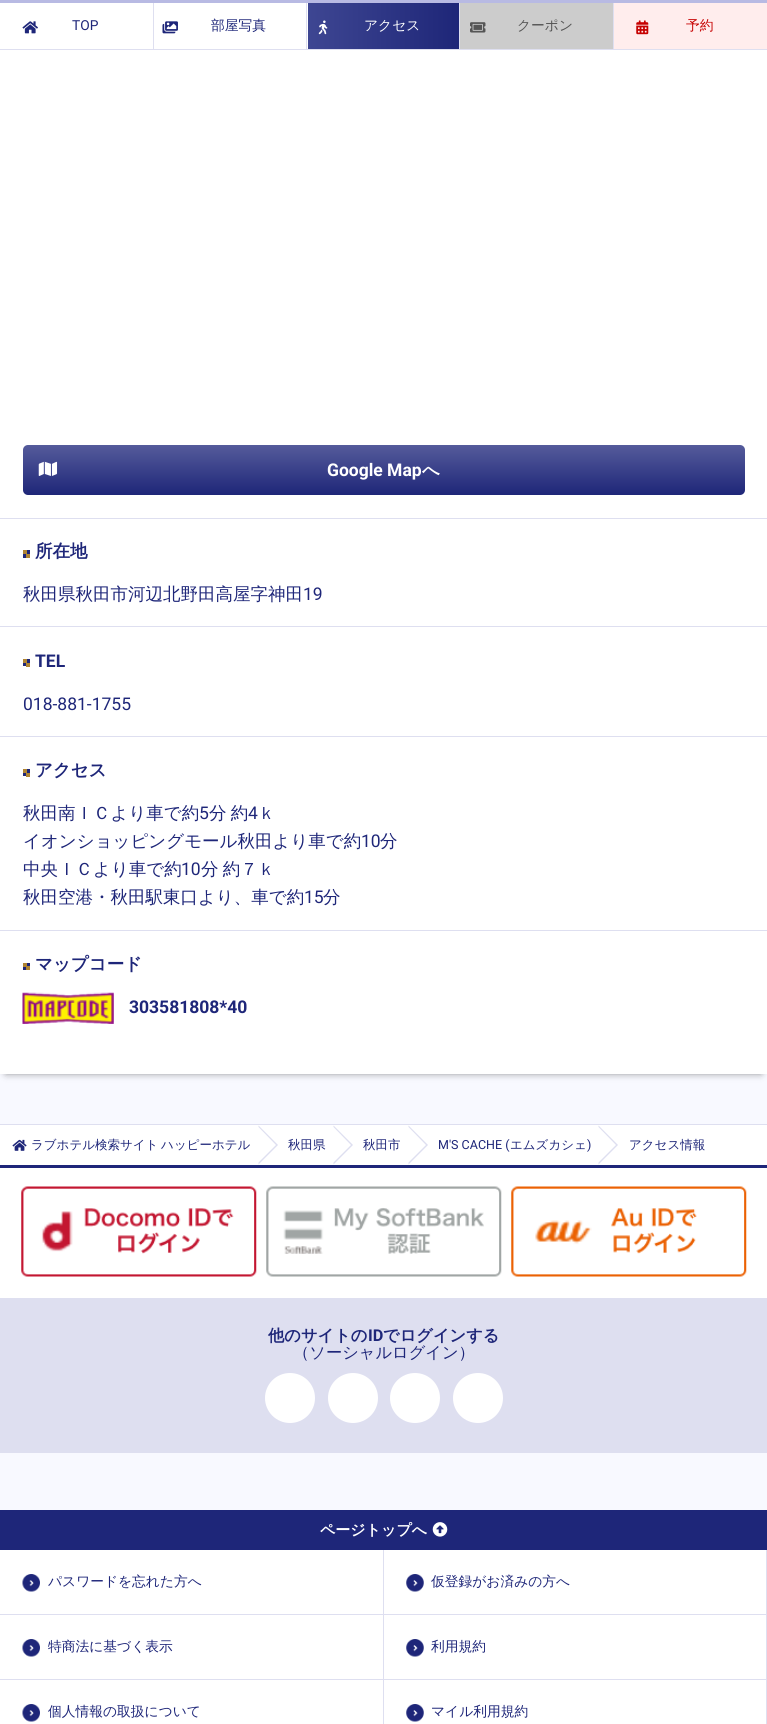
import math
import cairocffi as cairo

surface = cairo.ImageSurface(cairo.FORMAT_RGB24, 767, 1724)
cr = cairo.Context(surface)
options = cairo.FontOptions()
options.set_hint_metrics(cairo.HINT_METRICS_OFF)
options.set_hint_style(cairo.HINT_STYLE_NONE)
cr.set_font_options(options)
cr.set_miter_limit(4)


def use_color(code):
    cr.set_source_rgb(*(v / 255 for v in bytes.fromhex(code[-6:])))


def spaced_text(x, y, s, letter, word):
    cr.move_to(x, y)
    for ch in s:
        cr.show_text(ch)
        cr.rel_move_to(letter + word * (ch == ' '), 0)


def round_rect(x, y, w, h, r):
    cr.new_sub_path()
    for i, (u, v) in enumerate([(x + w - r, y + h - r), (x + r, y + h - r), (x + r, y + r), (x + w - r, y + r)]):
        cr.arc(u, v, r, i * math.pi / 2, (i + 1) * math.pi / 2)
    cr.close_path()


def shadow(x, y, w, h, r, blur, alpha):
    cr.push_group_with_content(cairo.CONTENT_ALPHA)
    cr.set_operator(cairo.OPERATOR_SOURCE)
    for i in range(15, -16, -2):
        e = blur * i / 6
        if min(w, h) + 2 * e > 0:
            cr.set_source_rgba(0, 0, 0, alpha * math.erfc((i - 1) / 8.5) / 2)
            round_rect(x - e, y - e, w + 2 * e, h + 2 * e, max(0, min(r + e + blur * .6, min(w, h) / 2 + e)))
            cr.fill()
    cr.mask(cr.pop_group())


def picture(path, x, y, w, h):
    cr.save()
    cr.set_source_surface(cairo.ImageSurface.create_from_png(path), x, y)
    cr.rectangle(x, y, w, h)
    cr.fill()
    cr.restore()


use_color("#ffffff")
cr.paint()
use_color("#f8f9ff")
cr.rectangle(0, 1074, 767, 50)
cr.fill()
use_color("#000000")
shadow(6, -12, 755, 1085, 0, 4, 0.5)
use_color("#ffffff")
cr.rectangle(0, 3, 767, 1071)
cr.fill()
use_color("#b8bae3")
cr.rectangle(0, 0, 767, 3)
cr.fill()
use_color("#dedff0")
cr.rectangle(153, 3, 1, 47)
cr.fill()
cr.rectangle(0, 49, 154, 1)
cr.fill()
picture("img1.png", 22, 21, 16, 13)
cr.select_font_face("Roboto")
cr.set_font_size(13.75)
use_color("#1e2679")
cr.move_to(72, 30)
cr.show_text("TOP")
use_color("#dedff0")
cr.rectangle(306, 3, 1, 47)
cr.fill()
cr.rectangle(154, 49, 154, 1)
cr.fill()
picture("img2.png", 162, 21, 16, 13)
cr.select_font_face("WenQuanYi Zen Hei Medium")
use_color("#1e2679")
cr.move_to(211, 30)
cr.show_text("部屋写真")
gradient = cairo.LinearGradient(308, 26, 459, 26)
gradient.add_color_stop_rgba(0, 0.243, 0.275, 0.573, 1)
gradient.add_color_stop_rgba(1, 0.118, 0.149, 0.471, 1)
cr.set_source(gradient)
cr.rectangle(308, 3, 151, 46)
cr.fill()
use_color("#dedff0")
cr.rectangle(459, 3, 1, 47)
cr.fill()
cr.rectangle(308, 49, 152, 1)
cr.fill()
picture("img3.png", 318, 20, 10, 15)
use_color("#ffffff")
cr.move_to(364, 30)
cr.show_text("アクセス")
use_color("#cccccc")
cr.rectangle(460, 3, 153, 46)
cr.fill()
use_color("#dedff0")
cr.rectangle(613, 3, 1, 47)
cr.fill()
cr.rectangle(460, 49, 307, 1)
cr.fill()
picture("img4.png", 470, 22, 16, 11)
use_color("#555555")
cr.move_to(517, 30)
cr.show_text("クーポン")
use_color("#ffeded")
cr.rectangle(614, 3, 153, 46)
cr.fill()
picture("img5.png", 636, 20, 13, 15)
use_color("#c60000")
cr.move_to(686, 30)
cr.show_text("予約")
gradient = cairo.LinearGradient(384, 445, 384, 495)
gradient.add_color_stop_rgba(0, 0.333, 0.357, 0.608, 1)
gradient.add_color_stop_rgba(1, 0.118, 0.149, 0.471, 1)
cr.set_source(gradient)
round_rect(23, 445, 722, 50, 5)
cr.fill()
picture("img6.png", 38, 461, 20, 15)
cr.select_font_face("Roboto", cairo.FONT_SLANT_NORMAL, cairo.FONT_WEIGHT_BOLD)
cr.set_font_size(17.5)
use_color("#ffffff")
cr.move_to(327, 476)
cr.show_text("Google Map")
cr.select_font_face("WenQuanYi Zen Hei", cairo.FONT_SLANT_NORMAL, cairo.FONT_WEIGHT_BOLD)
cr.move_to(422, 476)
cr.show_text("へ")
use_color("#dedff0")
cr.rectangle(0, 518, 767, 1)
cr.fill()
cr.rectangle(0, 626, 767, 1)
cr.fill()
use_color("#1e2679")
cr.rectangle(23, 550, 7, 8)
cr.fill()
use_color("#af8432")
cr.rectangle(23, 550, 4, 4)
cr.fill()
cr.rectangle(26, 554, 4, 4)
cr.fill()
use_color("#1e2679")
cr.move_to(35, 557)
cr.show_text("所在地")
cr.select_font_face("WenQuanYi Zen Hei Medium")
cr.move_to(23, 600)
cr.show_text("秋田県秋田市河辺北野田高屋字神田")
cr.select_font_face("Roboto")
cr.move_to(303, 600)
cr.show_text("19")
use_color("#dedff0")
cr.rectangle(0, 736, 767, 1)
cr.fill()
use_color("#1e2679")
cr.rectangle(23, 659, 7, 7)
cr.fill()
use_color("#af8432")
cr.rectangle(23, 659, 4, 4)
cr.fill()
cr.rectangle(26, 663, 4, 4)
cr.fill()
cr.select_font_face("Roboto", cairo.FONT_SLANT_NORMAL, cairo.FONT_WEIGHT_BOLD)
use_color("#1e2679")
cr.move_to(35, 667)
cr.show_text("TEL")
cr.select_font_face("Roboto")
cr.move_to(23, 710)
cr.show_text("018-881-1755")
use_color("#dedff0")
cr.rectangle(0, 930, 767, 1)
cr.fill()
use_color("#1e2679")
cr.rectangle(23, 769, 7, 7)
cr.fill()
use_color("#af8432")
cr.rectangle(23, 769, 4, 4)
cr.fill()
cr.rectangle(26, 773, 4, 4)
cr.fill()
cr.select_font_face("WenQuanYi Zen Hei", cairo.FONT_SLANT_NORMAL, cairo.FONT_WEIGHT_BOLD)
use_color("#1e2679")
cr.move_to(35, 776)
cr.show_text("アクセス")
cr.select_font_face("WenQuanYi Zen Hei Medium")
cr.move_to(23, 819)
cr.show_text("秋田南ＩＣより車で約")
cr.select_font_face("Roboto")
cr.move_to(199, 819)
cr.show_text("5")
cr.select_font_face("WenQuanYi Zen Hei Medium")
spaced_text(209, 819, "分 約", 0, -1)
cr.select_font_face("Roboto")
cr.move_to(248, 819)
cr.show_text("4")
cr.select_font_face("WenQuanYi Zen Hei Medium")
cr.move_to(258, 819)
cr.show_text("ｋ")
cr.move_to(23, 847)
cr.show_text("イオンショッピングモール秋田より車で約")
cr.select_font_face("Roboto")
cr.move_to(361, 847)
cr.show_text("10")
cr.select_font_face("WenQuanYi Zen Hei Medium")
cr.move_to(380, 847)
cr.show_text("分")
cr.move_to(23, 875)
cr.show_text("中央ＩＣより車で約")
cr.select_font_face("Roboto")
cr.move_to(181, 875)
cr.show_text("10")
cr.select_font_face("WenQuanYi Zen Hei Medium")
spaced_text(201, 875, "分 約７ｋ", 0, -1)
cr.move_to(23, 903)
cr.show_text("秋田空港・秋田駅東口より、車で約")
cr.select_font_face("Roboto")
cr.move_to(304, 903)
cr.show_text("15")
cr.select_font_face("WenQuanYi Zen Hei Medium")
cr.move_to(323, 903)
cr.show_text("分")
cr.rectangle(23, 963, 7, 7)
cr.fill()
use_color("#af8432")
cr.rectangle(23, 963, 4, 4)
cr.fill()
cr.rectangle(26, 966, 4, 4)
cr.fill()
cr.select_font_face("WenQuanYi Zen Hei", cairo.FONT_SLANT_NORMAL, cairo.FONT_WEIGHT_BOLD)
use_color("#1e2679")
cr.move_to(35, 970)
cr.show_text("マップコード")
picture("img7.png", 22, 992, 92, 32)
cr.select_font_face("Roboto", cairo.FONT_SLANT_NORMAL, cairo.FONT_WEIGHT_BOLD)
cr.move_to(129, 1013)
cr.show_text("303581808*40")
use_color("#dedff0")
cr.rectangle(0, 1124, 767, 1)
cr.fill()
picture("img8.png", 12, 1139, 15, 12)
cr.select_font_face("WenQuanYi Zen Hei Medium")
cr.set_font_size(12.5)
use_color("#1e2679")
spaced_text(31, 1149, "ラブホテル検索サイト ハッピーホテル", 0, -1)
use_color("#dedff0")
cr.new_path()
cr.move_to(258.5, 1125.5)
cr.line_to(278, 1145)
cr.line_to(276, 1145)
cr.line_to(258.5, 1127)
cr.close_path()
cr.move_to(278, 1145)
cr.line_to(258.5, 1164.5)
cr.line_to(258.5, 1162.5)
cr.line_to(276, 1145)
cr.close_path()
cr.fill()
use_color("#1e2679")
cr.move_to(288, 1149)
cr.show_text("秋田県")
use_color("#dedff0")
cr.new_path()
cr.move_to(333.5, 1125.5)
cr.line_to(353, 1145)
cr.line_to(351, 1145)
cr.line_to(333.5, 1127)
cr.close_path()
cr.move_to(353, 1145)
cr.line_to(333.5, 1164.5)
cr.line_to(333.5, 1162.5)
cr.line_to(351, 1145)
cr.close_path()
cr.fill()
use_color("#1e2679")
cr.move_to(363, 1149)
cr.show_text("秋田市")
use_color("#dedff0")
cr.new_path()
cr.move_to(408.5, 1125.5)
cr.line_to(428, 1145)
cr.line_to(426, 1145)
cr.line_to(408.5, 1127)
cr.close_path()
cr.move_to(428, 1145)
cr.line_to(408.5, 1164.5)
cr.line_to(408.5, 1162.5)
cr.line_to(426, 1145)
cr.close_path()
cr.fill()
cr.select_font_face("Roboto")
use_color("#1e2679")
cr.move_to(438, 1149)
cr.show_text("M'S CACHE (")
cr.select_font_face("WenQuanYi Zen Hei Medium")
cr.move_to(510, 1149)
cr.show_text("エムズカシェ")
cr.select_font_face("Roboto")
cr.move_to(587, 1149)
cr.show_text(")")
use_color("#dedff0")
cr.new_path()
cr.move_to(598.5, 1125.5)
cr.line_to(618, 1145)
cr.line_to(616, 1145)
cr.line_to(598.5, 1127)
cr.close_path()
cr.move_to(618, 1145)
cr.line_to(598.5, 1164.5)
cr.line_to(598.5, 1162.5)
cr.line_to(616, 1145)
cr.close_path()
cr.fill()
cr.select_font_face("WenQuanYi Zen Hei Medium")
use_color("#1e2679")
cr.move_to(629, 1149)
cr.show_text("アクセス情報")
cr.rectangle(0, 1165, 767, 3)
cr.fill()
picture("img9.png", 21, 1186, 236, 91)
picture("img10.png", 266, 1186, 236, 91)
picture("img11.png", 511, 1186, 236, 91)
use_color("#dedff0")
cr.rectangle(0, 1298, 767, 155)
cr.fill()
cr.select_font_face("WenQuanYi Zen Hei", cairo.FONT_SLANT_NORMAL, cairo.FONT_WEIGHT_BOLD)
cr.set_font_size(16.25)
use_color("#1e2679")
cr.move_to(268, 1341)
cr.show_text("他のサイトの")
cr.select_font_face("Roboto", cairo.FONT_SLANT_NORMAL, cairo.FONT_WEIGHT_BOLD)
cr.move_to(368, 1341)
cr.show_text("ID")
cr.select_font_face("WenQuanYi Zen Hei", cairo.FONT_SLANT_NORMAL, cairo.FONT_WEIGHT_BOLD)
cr.move_to(383, 1341)
cr.show_text("でログインする")
cr.select_font_face("WenQuanYi Zen Hei Medium")
cr.move_to(293, 1358)
cr.show_text("（ソーシャルログイン）")
use_color("#ffffff")
cr.new_path()
cr.arc(290, 1398, 25, 0, 2 * math.pi)
cr.fill()
cr.arc(353, 1398, 25, 0, 2 * math.pi)
cr.fill()
cr.arc(415, 1398, 25, 0, 2 * math.pi)
cr.fill()
cr.arc(478, 1398, 25, 0, 2 * math.pi)
cr.fill()
use_color("#f8f9ff")
cr.rectangle(0, 1453, 767, 57)
cr.fill()
use_color("#1e2679")
cr.rectangle(0, 1510, 767, 40)
cr.fill()
cr.select_font_face("WenQuanYi Zen Hei", cairo.FONT_SLANT_NORMAL, cairo.FONT_WEIGHT_BOLD)
cr.set_font_size(15)
use_color("#ffffff")
cr.move_to(320, 1535)
cr.show_text("ページトップへ")
picture("img12.png", 432, 1522, 16, 15)
picture("img13.png", 22, 1574, 18, 18)
use_color("#dedff0")
cr.rectangle(383, 1550, 1, 174)
cr.fill()
cr.rectangle(0, 1614, 384, 1)
cr.fill()
cr.select_font_face("WenQuanYi Zen Hei Medium")
cr.set_font_size(13.75)
use_color("#1e2679")
cr.move_to(48, 1586)
cr.show_text("パスワードを忘れた方へ")
picture("img14.png", 406, 1574, 18, 18)
use_color("#dedff0")
cr.rectangle(766, 1550, 1, 174)
cr.fill()
cr.rectangle(384, 1614, 383, 1)
cr.fill()
use_color("#1e2679")
cr.move_to(431, 1586)
cr.show_text("仮登録がお済みの方へ")
picture("img13.png", 22, 1639, 18, 18)
use_color("#dedff0")
cr.rectangle(0, 1679, 767, 1)
cr.fill()
use_color("#1e2679")
cr.move_to(48, 1651)
cr.show_text("特商法に基づく表示")
picture("img14.png", 406, 1639, 18, 18)
cr.move_to(431, 1651)
cr.show_text("利用規約")
picture("img13.png", 22, 1704, 18, 18)
cr.move_to(48, 1716)
cr.show_text("個人情報の取扱について")
picture("img14.png", 406, 1704, 18, 18)
cr.move_to(431, 1716)
cr.show_text("マイル利用規約")
surface.write_to_png("result.png")
